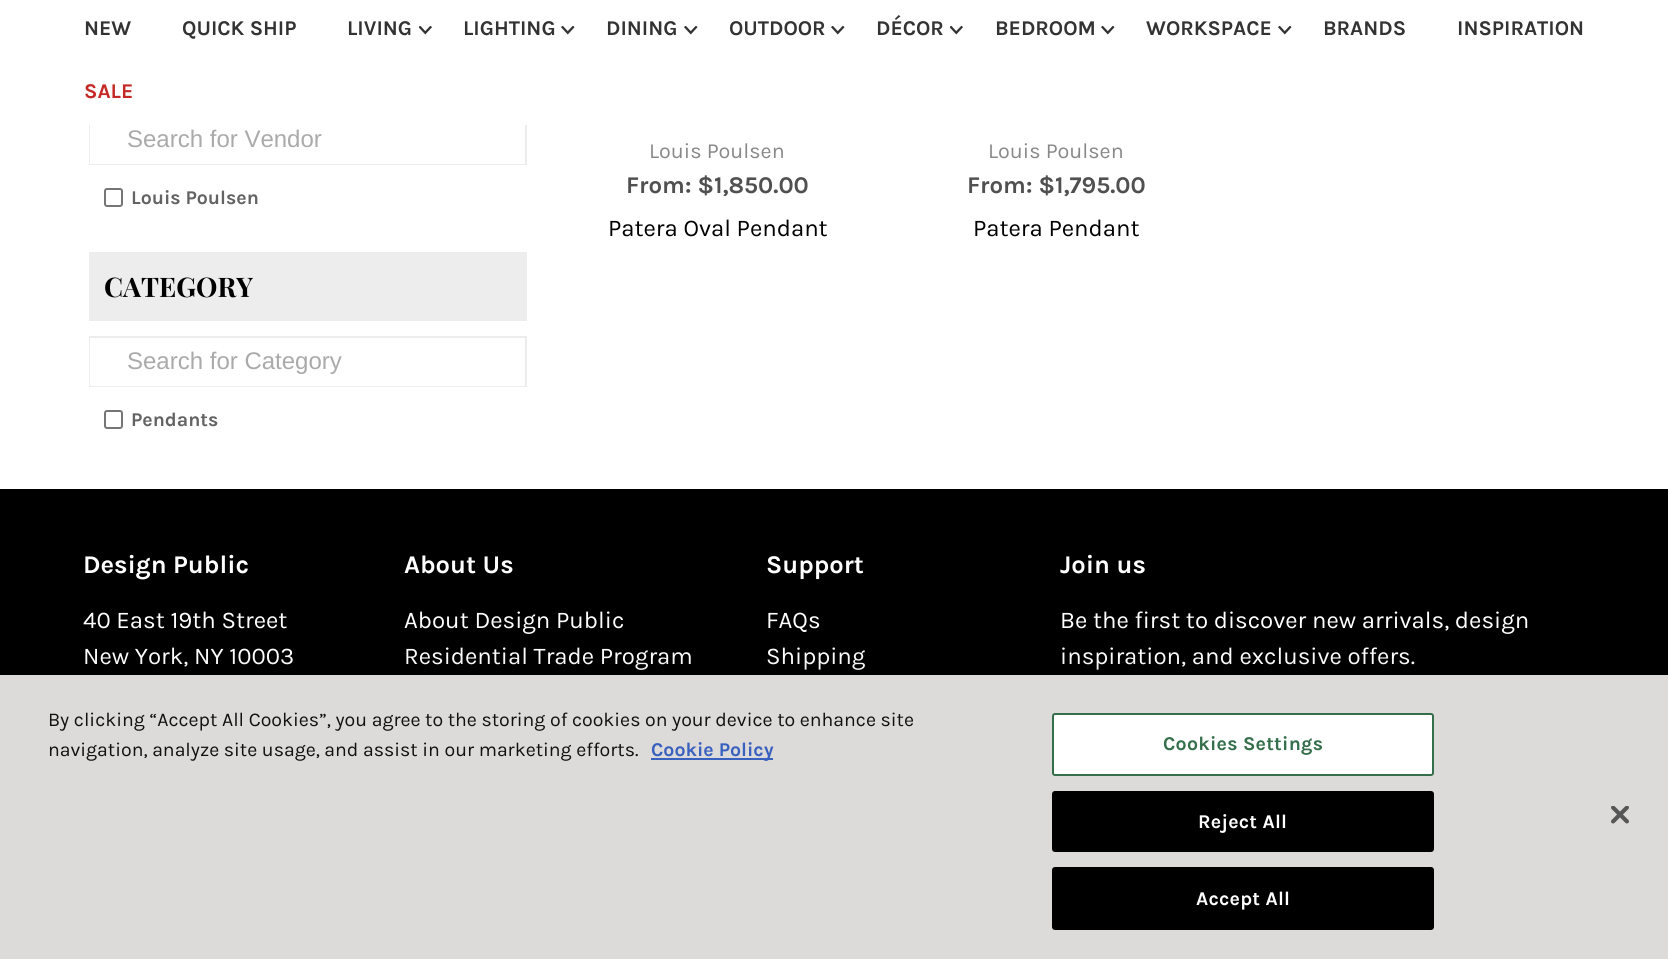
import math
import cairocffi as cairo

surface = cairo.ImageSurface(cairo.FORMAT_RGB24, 1668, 959)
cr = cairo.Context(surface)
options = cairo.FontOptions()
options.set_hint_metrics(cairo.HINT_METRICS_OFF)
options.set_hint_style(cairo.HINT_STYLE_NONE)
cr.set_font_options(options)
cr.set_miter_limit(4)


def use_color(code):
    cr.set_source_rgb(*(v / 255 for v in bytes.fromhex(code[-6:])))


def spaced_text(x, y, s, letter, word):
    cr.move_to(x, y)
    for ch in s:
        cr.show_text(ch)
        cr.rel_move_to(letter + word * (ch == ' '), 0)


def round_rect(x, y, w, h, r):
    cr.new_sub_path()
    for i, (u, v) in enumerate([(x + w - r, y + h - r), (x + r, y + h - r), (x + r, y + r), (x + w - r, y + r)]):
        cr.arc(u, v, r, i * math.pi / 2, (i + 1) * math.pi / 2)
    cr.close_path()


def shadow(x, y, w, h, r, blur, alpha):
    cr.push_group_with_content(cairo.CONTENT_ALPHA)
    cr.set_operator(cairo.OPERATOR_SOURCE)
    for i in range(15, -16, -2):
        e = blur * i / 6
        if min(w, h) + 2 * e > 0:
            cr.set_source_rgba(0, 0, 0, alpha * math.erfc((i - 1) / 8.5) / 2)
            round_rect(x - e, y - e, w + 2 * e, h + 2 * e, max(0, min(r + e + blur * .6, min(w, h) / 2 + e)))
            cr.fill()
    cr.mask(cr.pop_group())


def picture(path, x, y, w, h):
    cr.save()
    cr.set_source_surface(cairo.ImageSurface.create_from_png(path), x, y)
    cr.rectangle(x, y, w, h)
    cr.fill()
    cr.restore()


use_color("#ffffff")
cr.paint()
cr.rectangle(90, 115, 436, 49)
use_color("#ededed")
cr.stroke()
use_color("#ffffff")
cr.rectangle(89, 114, 438, 11)
cr.fill()
cr.select_font_face("Karla", cairo.FONT_SLANT_NORMAL, cairo.FONT_WEIGHT_BOLD)
cr.set_font_size(21)
use_color("#333333")
cr.move_to(84, 35)
cr.show_text("NEW")
cr.move_to(182, 35)
cr.show_text("QUICK SHIP")
cr.move_to(347, 35)
cr.show_text("LIVING")
picture("img1.png", 419, 26, 13, 9)
cr.move_to(463, 35)
cr.show_text("LIGHTING")
picture("img2.png", 561, 26, 14, 9)
cr.move_to(606, 35)
cr.show_text("DINING")
picture("img2.png", 684, 26, 14, 9)
cr.move_to(729, 35)
cr.show_text("OUTDOOR")
picture("img2.png", 831, 26, 14, 9)
cr.move_to(876, 35)
cr.show_text("DÉCOR")
picture("img1.png", 950, 26, 13, 9)
cr.move_to(995, 35)
cr.show_text("BEDROOM")
picture("img2.png", 1101, 26, 14, 9)
cr.move_to(1146, 35)
cr.show_text("WORKSPACE")
picture("img2.png", 1278, 26, 14, 9)
cr.move_to(1323, 35)
cr.show_text("BRANDS")
cr.move_to(1457, 35)
cr.show_text("INSPIRATION")
use_color("#c52926")
cr.move_to(84, 98)
cr.show_text("SALE")
use_color("#ffffff")
cr.rectangle(90, 125, 435, 39)
cr.fill()
cr.select_font_face("Liberation Sans")
cr.set_font_size(24)
use_color("#aaaaaa")
cr.move_to(127, 147)
cr.show_text("Search for Vendor")
round_rect(105, 189, 17, 17, 2)
use_color("#767676")
cr.stroke()
cr.select_font_face("Karla", cairo.FONT_SLANT_NORMAL, cairo.FONT_WEIGHT_BOLD)
cr.set_font_size(19.5)
use_color("#636363")
cr.move_to(131, 204)
cr.show_text("Louis Poulsen")
use_color("#ededed")
cr.rectangle(89, 252, 438, 69)
cr.fill()
cr.select_font_face("Playfair Display", cairo.FONT_SLANT_NORMAL, cairo.FONT_WEIGHT_BOLD)
cr.set_font_size(27)
use_color("#000000")
cr.move_to(104, 297)
cr.show_text("CATEGORY")
cr.rectangle(90, 337, 436, 49)
use_color("#ededed")
cr.stroke()
use_color("#ffffff")
cr.rectangle(90, 338, 435, 48)
cr.fill()
cr.select_font_face("Liberation Sans")
cr.set_font_size(24)
use_color("#aaaaaa")
cr.move_to(127, 369)
cr.show_text("Search for Category")
round_rect(105, 411, 17, 17, 2)
use_color("#767676")
cr.stroke()
cr.select_font_face("Karla", cairo.FONT_SLANT_NORMAL, cairo.FONT_WEIGHT_BOLD)
cr.set_font_size(19.5)
use_color("#636363")
cr.move_to(131, 426)
cr.show_text("Pendants")
cr.select_font_face("Karla")
cr.set_font_size(21.5)
use_color("#888888")
cr.move_to(649, 158)
cr.show_text("Louis Poulsen")
cr.select_font_face("Karla", cairo.FONT_SLANT_NORMAL, cairo.FONT_WEIGHT_BOLD)
cr.set_font_size(24)
use_color("#515050")
cr.move_to(626, 193)
cr.show_text("From: $1,850.00")
cr.select_font_face("Karla")
use_color("#000000")
cr.move_to(608, 236)
cr.show_text("Patera Oval Pendant")
cr.set_font_size(21.5)
use_color("#888888")
cr.move_to(988, 158)
cr.show_text("Louis Poulsen")
cr.select_font_face("Karla", cairo.FONT_SLANT_NORMAL, cairo.FONT_WEIGHT_BOLD)
cr.set_font_size(24)
use_color("#515050")
cr.move_to(967, 193)
cr.show_text("From: $1,795.00")
cr.select_font_face("Karla")
use_color("#000000")
cr.move_to(973, 236)
cr.show_text("Patera Pendant")
cr.rectangle(0, 489, 1668, 186)
cr.fill()
cr.select_font_face("Karla", cairo.FONT_SLANT_NORMAL, cairo.FONT_WEIGHT_BOLD)
cr.set_font_size(25.5)
use_color("#ffffff")
cr.move_to(83, 573)
cr.show_text("Design Public")
cr.select_font_face("Karla")
cr.set_font_size(24)
cr.move_to(83, 628)
cr.show_text("40 East 19th Street")
cr.move_to(83, 664)
cr.show_text("New York, NY 10003")
cr.select_font_face("Karla", cairo.FONT_SLANT_NORMAL, cairo.FONT_WEIGHT_BOLD)
cr.set_font_size(25.5)
cr.move_to(404, 573)
cr.show_text("About Us")
cr.select_font_face("Karla")
cr.set_font_size(24)
cr.move_to(404, 628)
cr.show_text("About Design Public")
cr.move_to(404, 664)
cr.show_text("Residential Trade Program")
cr.select_font_face("Karla", cairo.FONT_SLANT_NORMAL, cairo.FONT_WEIGHT_BOLD)
cr.set_font_size(25.5)
cr.move_to(766, 573)
cr.show_text("Support")
cr.select_font_face("Karla")
cr.set_font_size(24)
cr.move_to(766, 628)
cr.show_text("FAQs")
cr.move_to(766, 664)
cr.show_text("Shipping")
cr.select_font_face("Karla", cairo.FONT_SLANT_NORMAL, cairo.FONT_WEIGHT_BOLD)
cr.set_font_size(25.5)
cr.move_to(1060, 573)
cr.show_text("Join us")
cr.select_font_face("Karla")
cr.set_font_size(24)
cr.move_to(1060, 628)
cr.show_text("Be the first to discover new arrivals, design")
cr.move_to(1060, 664)
cr.show_text("inspiration, and exclusive offers.")
use_color("#000000")
shadow(0, 675, 1668, 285, 0, 13.5, 0.2)
use_color("#dddada")
cr.rectangle(0, 675, 1668, 284)
cr.fill()
cr.set_font_size(19.5)
use_color("#121111")
cr.move_to(48, 726)
cr.show_text("By clicking “Accept All Cookies”, you agree to the storing of cookies on your device to enhance site")
cr.move_to(48, 756)
cr.show_text("navigation, analyze site usage, and assist in our marketing efforts.")
use_color("#3860be")
cr.rectangle(651, 758, 122, 2)
cr.fill()
cr.select_font_face("Karla", cairo.FONT_SLANT_NORMAL, cairo.FONT_WEIGHT_BOLD)
cr.move_to(651, 756)
cr.show_text("Cookie Policy")
use_color("#ffffff")
round_rect(1053, 714, 380, 61, 2)
cr.fill_preserve()
use_color("#346e4a")
cr.stroke()
spaced_text(1163, 750, "Cookies Settings", 0.25, 0)
use_color("#000000")
round_rect(1053, 792, 380, 59, 2)
cr.fill_preserve()
cr.stroke()
use_color("#ffffff")
spaced_text(1198, 828, "Reject All", 0.25, 0)
use_color("#000000")
round_rect(1053, 868, 380, 61, 2)
cr.fill_preserve()
cr.stroke()
use_color("#ffffff")
spaced_text(1196, 905, "Accept All", 0.25, 0)
picture("img3.png", 1611, 806, 18, 18)
surface.write_to_png("result.png")
